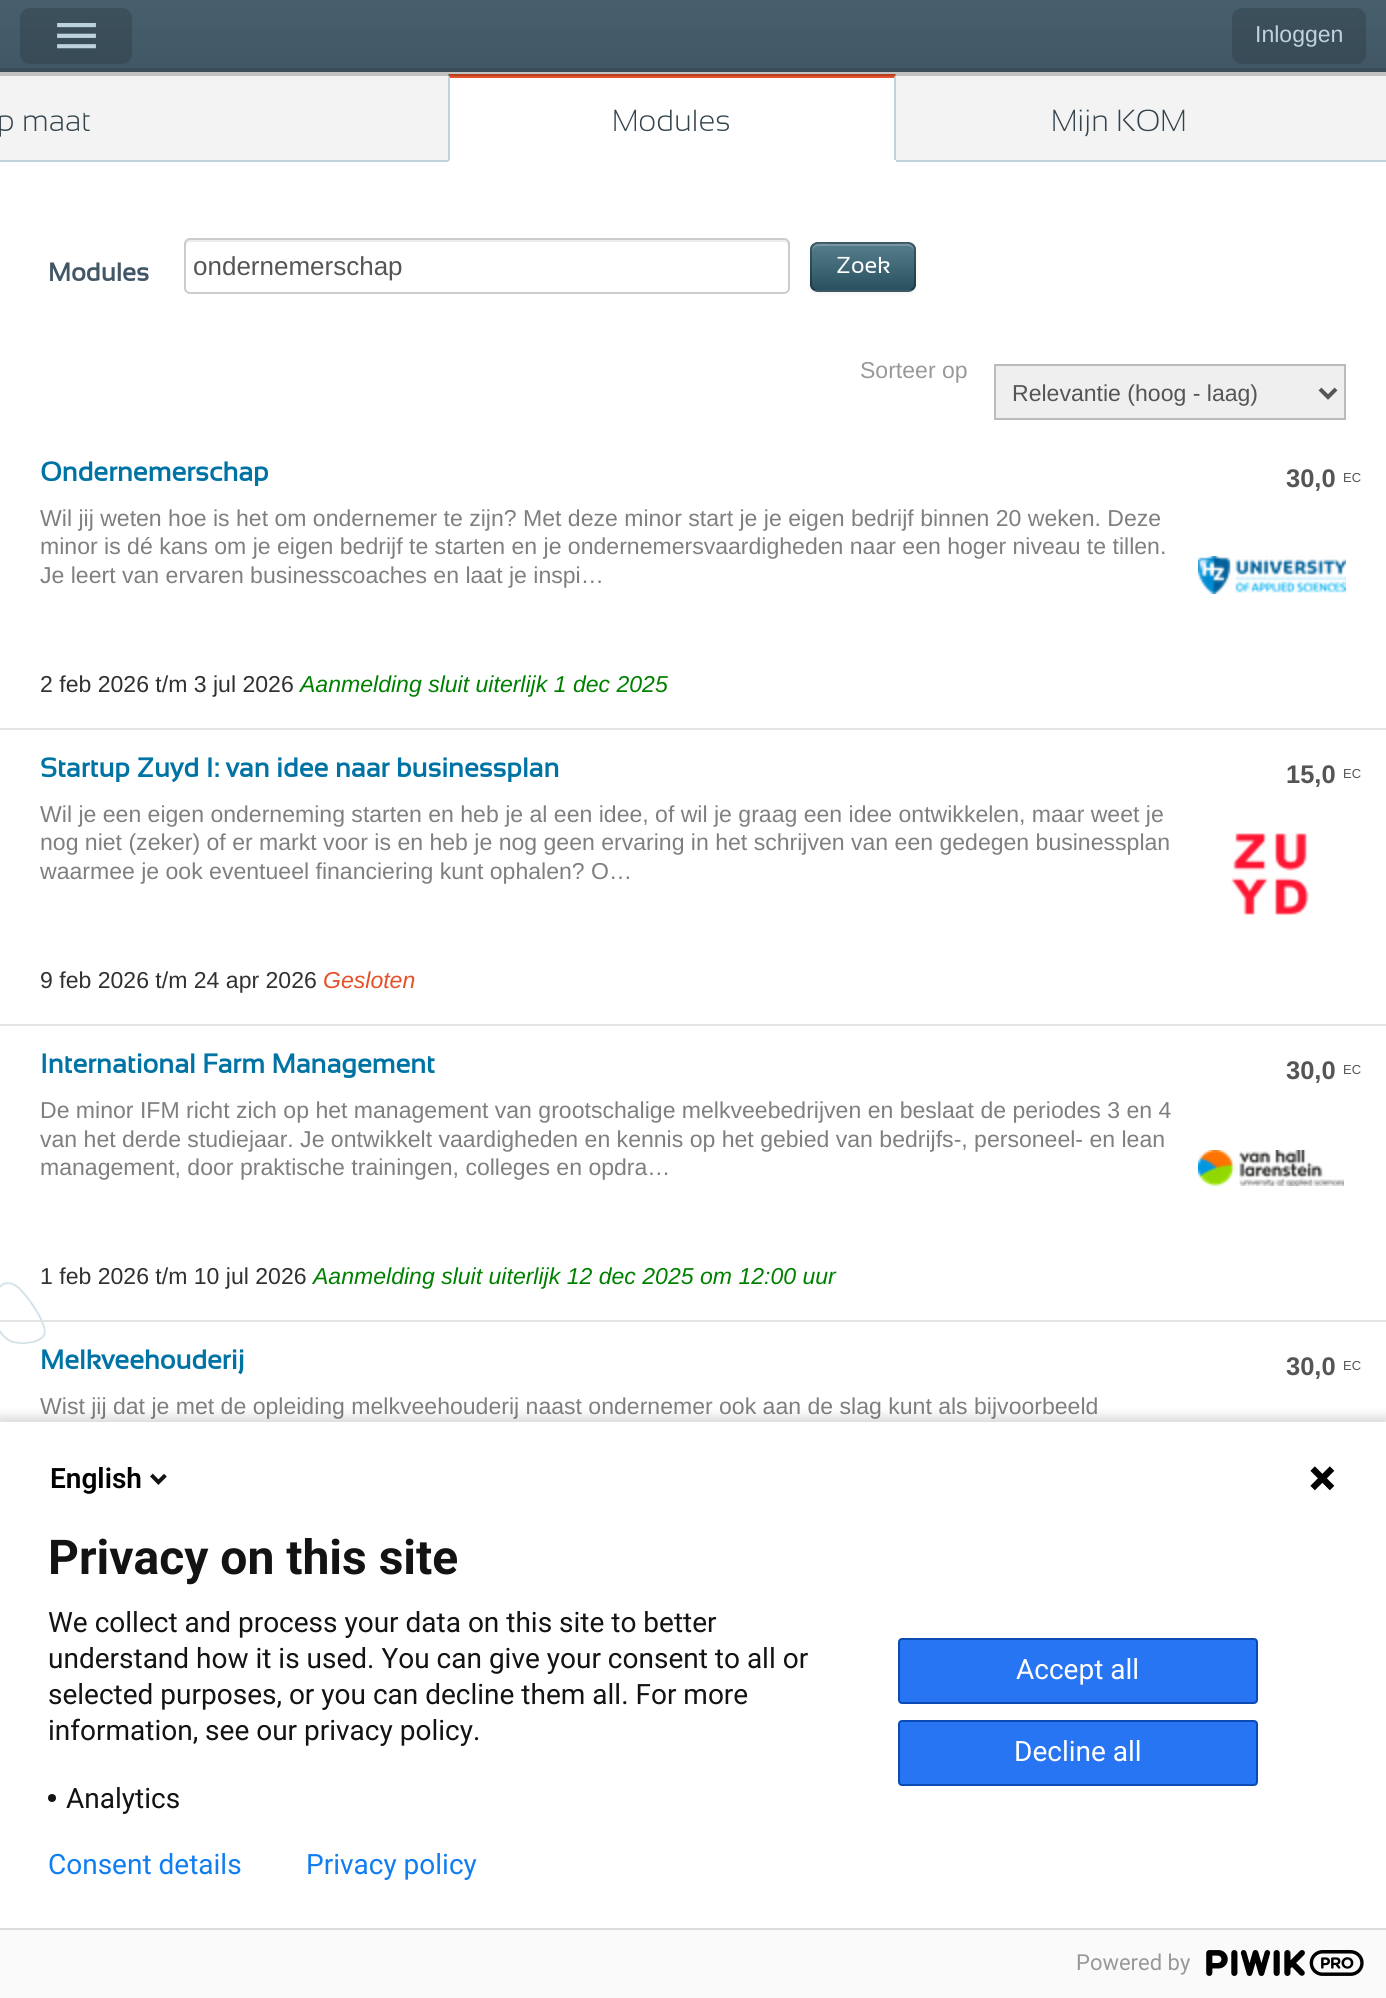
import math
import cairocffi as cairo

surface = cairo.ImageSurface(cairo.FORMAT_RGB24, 1386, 1998)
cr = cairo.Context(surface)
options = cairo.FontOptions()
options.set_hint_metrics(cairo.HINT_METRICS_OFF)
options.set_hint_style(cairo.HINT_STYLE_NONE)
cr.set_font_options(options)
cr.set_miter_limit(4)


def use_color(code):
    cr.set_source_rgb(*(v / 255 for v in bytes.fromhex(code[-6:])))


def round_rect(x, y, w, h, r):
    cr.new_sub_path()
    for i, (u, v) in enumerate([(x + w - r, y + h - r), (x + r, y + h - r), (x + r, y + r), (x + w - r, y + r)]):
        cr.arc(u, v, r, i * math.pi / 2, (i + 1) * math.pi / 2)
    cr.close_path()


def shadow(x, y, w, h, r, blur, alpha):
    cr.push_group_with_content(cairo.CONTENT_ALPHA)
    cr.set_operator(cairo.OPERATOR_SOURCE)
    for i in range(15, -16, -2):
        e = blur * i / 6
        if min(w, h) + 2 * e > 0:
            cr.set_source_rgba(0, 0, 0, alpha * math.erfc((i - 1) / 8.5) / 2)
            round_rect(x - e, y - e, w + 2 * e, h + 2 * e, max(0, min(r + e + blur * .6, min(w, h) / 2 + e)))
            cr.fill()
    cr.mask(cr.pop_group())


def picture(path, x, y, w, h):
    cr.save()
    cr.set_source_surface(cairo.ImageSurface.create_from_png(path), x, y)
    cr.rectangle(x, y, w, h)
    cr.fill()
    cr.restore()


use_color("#ffffff")
cr.paint()
picture("img1.png", 0, 1282, 46, 63)
use_color("#f3f3f3")
cr.rectangle(0, 72, 1386, 88)
cr.fill()
use_color("#bed3dc")
cr.rectangle(0, 160, 1386, 2)
cr.fill()
use_color("#e45129")
cr.new_path()
cr.move_to(448, 74)
cr.line_to(896, 74)
cr.line_to(894, 78)
cr.line_to(450, 78)
cr.close_path()
cr.fill()
use_color("#bed3dc")
cr.new_path()
cr.move_to(896, 74)
cr.line_to(896, 162)
cr.line_to(894, 160)
cr.line_to(894, 78)
cr.close_path()
cr.fill()
use_color("#ffffff")
cr.rectangle(448, 160, 448, 2)
cr.fill()
use_color("#bed3dc")
cr.new_path()
cr.move_to(448, 162)
cr.line_to(448, 74)
cr.line_to(450, 78)
cr.line_to(450, 160)
cr.close_path()
cr.fill()
cr.set_source_rgba(0, 0, 0, 0.2)
cr.rectangle(0, 72, 1386, 4)
cr.fill()
gradient = cairo.LinearGradient(0, 68, 0, 0)
gradient.add_color_stop_rgba(0, 0.255, 0.341, 0.396, 1)
gradient.add_color_stop_rgba(1, 0.278, 0.373, 0.427, 1)
cr.set_source(gradient)
cr.rectangle(0, 0, 1386, 68)
cr.fill()
use_color("#394c57")
cr.rectangle(0, 68, 1386, 4)
cr.fill()
cr.set_source_rgba(0, 0, 0, 0.15)
round_rect(20, 8, 112, 56, 10)
cr.fill()
picture("img2.png", 57, 23, 39, 26)
round_rect(1232, 8, 134, 56, 10)
cr.fill()
cr.select_font_face("Liberation Sans")
cr.set_font_size(23.05)
use_color("#bed3dc")
cr.move_to(1255, 42)
cr.show_text("Inloggen")
cr.select_font_face("Sansation Light Light")
cr.set_font_size(30.5)
use_color("#33434c")
cr.move_to(-3, 131)
cr.show_text("p maat")
use_color("#ffffff")
cr.rectangle(450, 78, 444, 82)
cr.fill()
use_color("#33434c")
cr.move_to(612, 131)
cr.show_text("Modules")
cr.move_to(1051, 131)
cr.show_text("Mijn KOM")
cr.select_font_face("Sansation", cairo.FONT_SLANT_NORMAL, cairo.FONT_WEIGHT_BOLD)
cr.set_font_size(25.5)
use_color("#415765")
cr.move_to(48, 281)
cr.show_text("Modules")
use_color("#ececec")
cr.new_path()
cr.move_to(190, 242)
cr.line_to(784, 242)
cr.curve_to(786, 242, 788, 244, 788, 246)
cr.line_to(788, 244)
cr.curve_to(788, 242, 786, 240, 784, 240)
cr.line_to(190, 240)
cr.curve_to(188, 240, 186, 242, 186, 244)
cr.line_to(186, 246)
cr.curve_to(186, 244, 188, 242, 190, 242)
cr.close_path()
cr.fill()
round_rect(185, 239, 604, 54, 5)
use_color("#cccccc")
cr.stroke()
cr.select_font_face("Liberation Sans")
cr.set_font_size(26)
use_color("#555555")
cr.move_to(193, 275)
cr.show_text("ondernemerschap")
use_color("#000000")
shadow(810, 244, 106, 50, 8, 2, 0.05)
use_color("#577e8c")
round_rect(810, 242, 106, 50, 8)
cr.fill()
cr.save()
round_rect(810, 242, 106, 50, 8)
cr.clip()
gradient = cairo.LinearGradient(863, 244, 863, 290)
gradient.add_color_stop_rgba(0, 0.341, 0.494, 0.549, 1)
gradient.add_color_stop_rgba(1, 0.161, 0.314, 0.376, 1)
cr.set_source(gradient)
cr.rectangle(810, 244, 106, 46)
cr.fill()
cr.restore()
cr.set_source_rgba(1, 1, 1, 0.2)
cr.new_path()
cr.move_to(818, 246)
cr.line_to(908, 246)
cr.curve_to(911, 246, 914, 249, 914, 252)
cr.curve_to(914, 240, 902, 244, 893, 244)
cr.line_to(833, 244)
cr.curve_to(824, 244, 812, 240, 812, 252)
cr.curve_to(812, 249, 815, 246, 818, 246)
cr.close_path()
cr.fill()
round_rect(811, 243, 104, 48, 7)
cr.set_source_rgba(0, 0, 0, 0.3)
cr.stroke()
cr.select_font_face("Sansation")
cr.set_font_size(23.05)
use_color("#ffffff")
cr.move_to(836, 273)
cr.show_text("Zoek")
cr.select_font_face("Liberation Sans")
use_color("#999999")
cr.move_to(860, 378)
cr.show_text("Sorteer op")
use_color("#efefef")
cr.rectangle(995, 365, 350, 54)
cr.fill_preserve()
use_color("#bbbbbb")
cr.stroke()
cr.new_path()
cr.move_to(1320, 389)
cr.line_to(1328, 397)
cr.line_to(1336, 389)
use_color("#555555")
cr.set_line_width(4)
cr.stroke()
cr.move_to(1012, 401)
cr.show_text("Relevantie (hoog - laag)")
use_color("#e3e3e3")
cr.rectangle(0, 728, 1386, 2)
cr.fill()
cr.select_font_face("Sansation", cairo.FONT_SLANT_NORMAL, cairo.FONT_WEIGHT_BOLD)
cr.set_font_size(26.9)
use_color("#0073a5")
cr.move_to(40, 481)
cr.show_text("Ondernemerschap")
cr.select_font_face("Liberation Sans", cairo.FONT_SLANT_NORMAL, cairo.FONT_WEIGHT_BOLD)
cr.set_font_size(25.5)
use_color("#555555")
cr.move_to(1286, 487)
cr.show_text("30,0")
cr.select_font_face("Liberation Sans")
cr.set_font_size(13)
cr.move_to(1343, 482)
cr.show_text("EC")
cr.set_font_size(23.05)
use_color("#7f7f7f")
cr.move_to(40, 526)
cr.show_text("Wil jij weten hoe is het om ondernemer te zijn? Met deze minor start je je eigen bedrijf binnen 20 weken. Deze")
cr.move_to(40, 554)
cr.show_text("minor is dé kans om je eigen bedrijf te starten en je ondernemersvaardigheden naar een hoger niveau te tillen.")
cr.move_to(40, 583)
cr.show_text("Je leert van ervaren businesscoaches en laat je inspi…")
picture("img3.png", 1198, 556, 148, 38)
use_color("#313131")
cr.move_to(40, 692)
cr.show_text("2 feb 2026 t/m 3 jul 2026")
cr.select_font_face("Liberation Sans", cairo.FONT_SLANT_ITALIC)
use_color("#008000")
cr.move_to(300, 692)
cr.show_text("Aanmelding sluit uiterlijk 1 dec 2025")
use_color("#e3e3e3")
cr.rectangle(0, 1024, 1386, 2)
cr.fill()
cr.select_font_face("Sansation", cairo.FONT_SLANT_NORMAL, cairo.FONT_WEIGHT_BOLD)
cr.set_font_size(26.9)
use_color("#0073a5")
cr.move_to(40, 777)
cr.show_text("Startup Zuyd I: van idee naar businessplan")
cr.select_font_face("Liberation Sans", cairo.FONT_SLANT_NORMAL, cairo.FONT_WEIGHT_BOLD)
cr.set_font_size(25.5)
use_color("#555555")
cr.move_to(1286, 783)
cr.show_text("15,0")
cr.select_font_face("Liberation Sans")
cr.set_font_size(13)
cr.move_to(1343, 778)
cr.show_text("EC")
cr.set_font_size(23.05)
use_color("#7f7f7f")
cr.move_to(40, 822)
cr.show_text("Wil je een eigen onderneming starten en heb je al een idee, of wil je graag een idee ontwikkelen, maar weet je")
cr.move_to(40, 850)
cr.show_text("nog niet (zeker) of er markt voor is en heb je nog geen ervaring in het schrijven van een gedegen businessplan")
picture("img4.png", 1231, 833, 78, 83)
cr.move_to(40, 879)
cr.show_text("waarmee je ook eventueel financiering kunt ophalen? O…")
use_color("#313131")
cr.move_to(40, 988)
cr.show_text("9 feb 2026 t/m 24 apr 2026")
cr.select_font_face("Liberation Sans", cairo.FONT_SLANT_ITALIC)
use_color("#e45129")
cr.move_to(323, 988)
cr.show_text("Gesloten")
use_color("#e3e3e3")
cr.rectangle(0, 1320, 1386, 2)
cr.fill()
cr.select_font_face("Sansation", cairo.FONT_SLANT_NORMAL, cairo.FONT_WEIGHT_BOLD)
cr.set_font_size(26.9)
use_color("#0073a5")
cr.move_to(40, 1073)
cr.show_text("International Farm Management")
cr.select_font_face("Liberation Sans", cairo.FONT_SLANT_NORMAL, cairo.FONT_WEIGHT_BOLD)
cr.set_font_size(25.5)
use_color("#555555")
cr.move_to(1286, 1079)
cr.show_text("30,0")
cr.select_font_face("Liberation Sans")
cr.set_font_size(13)
cr.move_to(1343, 1074)
cr.show_text("EC")
cr.set_font_size(23.05)
use_color("#7f7f7f")
cr.move_to(40, 1118)
cr.show_text("De minor IFM richt zich op het management van grootschalige melkveebedrijven en beslaat de periodes 3 en 4")
cr.move_to(40, 1147)
cr.show_text("van het derde studiejaar. Je ontwikkelt vaardigheden en kennis op het gebied van bedrijfs-, personeel- en lean")
cr.move_to(40, 1175)
cr.show_text("management, door praktische trainingen, colleges en opdra…")
picture("img5.png", 1198, 1150, 146, 36)
use_color("#313131")
cr.move_to(40, 1284)
cr.show_text("1 feb 2026 t/m 10 jul 2026")
cr.select_font_face("Liberation Sans", cairo.FONT_SLANT_ITALIC)
use_color("#008000")
cr.move_to(313, 1284)
cr.show_text("Aanmelding sluit uiterlijk 12 dec 2025 om 12:00 uur")
cr.select_font_face("Sansation", cairo.FONT_SLANT_NORMAL, cairo.FONT_WEIGHT_BOLD)
cr.set_font_size(26.9)
use_color("#0073a5")
cr.move_to(40, 1369)
cr.show_text("Melkveehouderij")
cr.select_font_face("Liberation Sans", cairo.FONT_SLANT_NORMAL, cairo.FONT_WEIGHT_BOLD)
cr.set_font_size(25.5)
use_color("#555555")
cr.move_to(1286, 1375)
cr.show_text("30,0")
cr.select_font_face("Liberation Sans")
cr.set_font_size(13)
cr.move_to(1343, 1370)
cr.show_text("EC")
cr.set_font_size(23.05)
use_color("#7f7f7f")
cr.move_to(40, 1414)
cr.show_text("Wist jij dat je met de opleiding melkveehouderij naast ondernemer ook aan de slag kunt als bijvoorbeeld")
use_color("#000000")
shadow(-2, 1416, 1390, 580, 0, 5, 0.14)
use_color("#ffffff")
cr.rectangle(0, 1422, 1386, 506)
cr.fill()
cr.select_font_face("Roboto SemiBold")
cr.set_font_size(28)
use_color("#000000")
cr.move_to(50, 1488)
cr.show_text("English")
picture("img6.png", 150, 1473, 17, 12)
picture("img7.png", 1310, 1466, 25, 25)
cr.select_font_face("Roboto", cairo.FONT_SLANT_NORMAL, cairo.FONT_WEIGHT_BOLD)
cr.set_font_size(48)
use_color("#131313")
cr.move_to(48, 1574)
cr.show_text("Privacy on this site")
cr.select_font_face("Roboto")
cr.set_font_size(28)
cr.move_to(48, 1632)
cr.show_text("We collect and process your data on this site to better")
cr.move_to(48, 1668)
cr.show_text("understand how it is used. You can give your consent to all or")
cr.move_to(48, 1704)
cr.show_text("selected purposes, or you can decline them all. For more")
cr.move_to(48, 1740)
cr.show_text("information, see our privacy policy.")
cr.new_path()
cr.arc(52, 1798, 4, 0, 2 * math.pi)
cr.fill()
cr.move_to(66, 1808)
cr.show_text("Analytics")
use_color("#2775f2")
round_rect(899, 1639, 358, 64, 3)
cr.fill_preserve()
use_color("#0b4bb3")
cr.set_line_width(2)
cr.stroke()
use_color("#ffffff")
cr.move_to(1016, 1679)
cr.show_text("Accept all")
use_color("#2775f2")
round_rect(899, 1721, 358, 64, 3)
cr.fill_preserve()
use_color("#0b4bb3")
cr.stroke()
use_color("#ffffff")
cr.move_to(1014, 1761)
cr.show_text("Decline all")
use_color("#107ef1")
cr.move_to(48, 1874)
cr.show_text("Consent details")
cr.move_to(306, 1874)
cr.show_text("Privacy policy")
use_color("#fafafa")
cr.rectangle(0, 1930, 1386, 68)
cr.fill()
use_color("#dddddd")
cr.rectangle(0, 1928, 1386, 2)
cr.fill()
cr.set_font_size(22)
use_color("#999999")
cr.move_to(1076, 1970)
cr.show_text("Powered by")
picture("img8.png", 1206, 1950, 158, 26)
surface.write_to_png("result.png")
